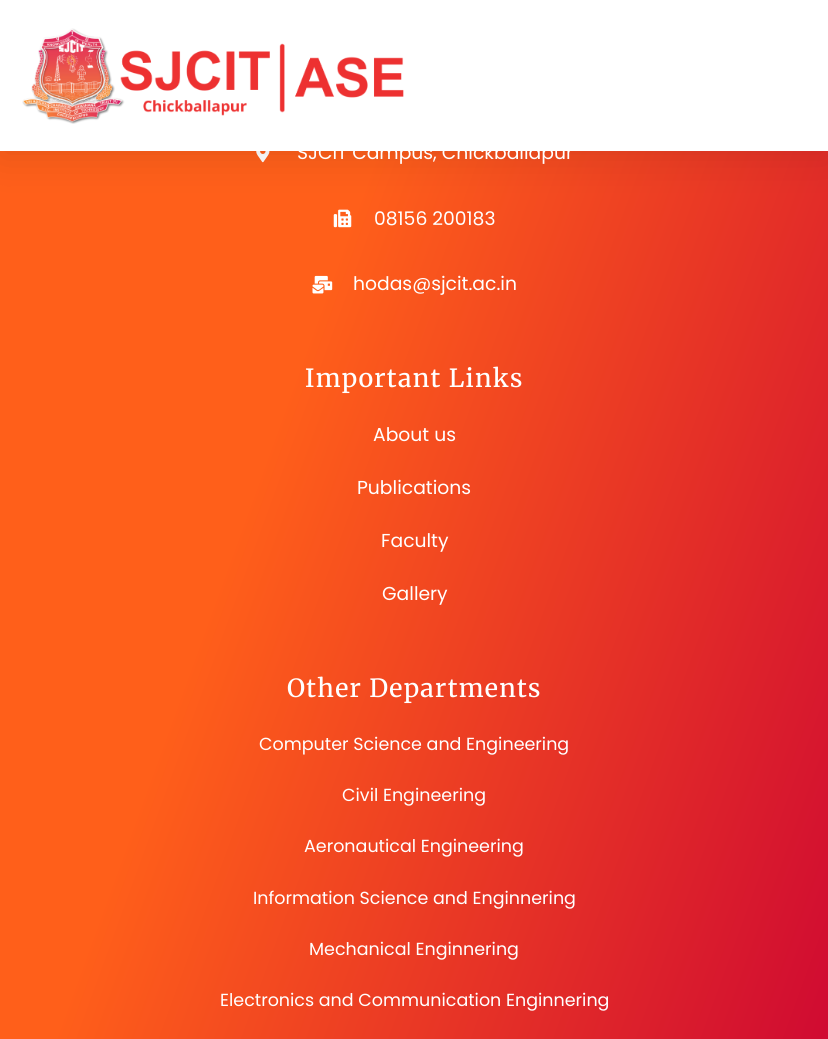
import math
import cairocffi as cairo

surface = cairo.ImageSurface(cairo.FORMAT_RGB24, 828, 1039)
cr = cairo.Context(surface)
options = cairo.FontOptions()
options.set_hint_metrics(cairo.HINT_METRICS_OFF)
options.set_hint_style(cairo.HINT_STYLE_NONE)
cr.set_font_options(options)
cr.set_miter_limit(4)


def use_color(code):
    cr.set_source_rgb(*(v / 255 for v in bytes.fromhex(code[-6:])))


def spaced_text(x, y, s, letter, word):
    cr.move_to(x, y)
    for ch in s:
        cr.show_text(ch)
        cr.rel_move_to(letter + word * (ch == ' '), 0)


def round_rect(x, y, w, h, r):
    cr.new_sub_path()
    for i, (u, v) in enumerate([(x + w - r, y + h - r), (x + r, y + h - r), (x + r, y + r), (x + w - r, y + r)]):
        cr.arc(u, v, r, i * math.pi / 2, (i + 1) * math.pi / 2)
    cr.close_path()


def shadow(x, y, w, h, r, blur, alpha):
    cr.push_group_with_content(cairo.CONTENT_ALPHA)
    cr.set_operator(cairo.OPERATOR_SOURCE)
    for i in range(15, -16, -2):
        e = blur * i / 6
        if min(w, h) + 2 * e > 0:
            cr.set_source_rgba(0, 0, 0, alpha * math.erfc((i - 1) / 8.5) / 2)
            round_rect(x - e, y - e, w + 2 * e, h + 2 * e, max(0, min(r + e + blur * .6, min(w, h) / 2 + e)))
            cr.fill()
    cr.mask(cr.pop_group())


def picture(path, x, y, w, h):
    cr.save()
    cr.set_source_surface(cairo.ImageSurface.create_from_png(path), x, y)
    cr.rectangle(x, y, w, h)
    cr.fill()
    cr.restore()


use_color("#ffffff")
cr.paint()
gradient = cairo.LinearGradient(-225, 167, 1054, 632)
gradient.add_color_stop_rgba(0.41, 1, 0.373, 0.102, 1)
gradient.add_color_stop_rgba(1, 0.796, 0.008, 0.204, 1)
cr.set_source(gradient)
cr.rectangle(0, 151, 828, 888)
cr.fill()
picture("img2.png", 256, 151, 14, 12)
picture("img3.png", 333, 209, 19, 19)
use_color("#000000")
shadow(0, 6, 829, 152, 0, 19, 0.1)
use_color("#ffffff")
cr.rectangle(0, 0, 828, 151)
cr.fill()
picture("img1.png", 22, 28, 382, 96)
cr.select_font_face("Poppins")
cr.set_font_size(18.75)
cr.move_to(297, 159)
cr.show_text("SJCIT Campus, Chickballapur")
cr.move_to(374, 225)
cr.show_text("08156 200183")
picture("img4.png", 312, 275, 21, 19)
cr.move_to(353, 290)
cr.show_text("hodas@sjcit.ac.in")
cr.select_font_face("Merriweather Medium")
cr.set_font_size(25)
spaced_text(305, 387, "Important Links", 1.25, 0)
cr.select_font_face("Poppins")
cr.set_font_size(18.75)
cr.move_to(373, 441)
cr.show_text("About us")
cr.move_to(357, 494)
cr.show_text("Publications")
cr.move_to(381, 547)
cr.show_text("Faculty")
cr.move_to(382, 600)
cr.show_text("Gallery")
cr.select_font_face("Merriweather Medium")
cr.set_font_size(25)
spaced_text(287, 697, "Other Departments", 1.25, 0)
cr.select_font_face("Poppins")
cr.set_font_size(17.5)
cr.move_to(259, 750)
cr.show_text("Computer Science and Engineering")
cr.move_to(342, 801)
cr.show_text("Civil Engineering")
cr.move_to(304, 852)
cr.show_text("Aeronautical Engineering")
cr.move_to(253, 904)
cr.show_text("Information Science and Enginnering")
cr.move_to(309, 955)
cr.show_text("Mechanical Enginnering")
cr.move_to(220, 1006)
cr.show_text("Electronics and Communication Enginnering")
surface.write_to_png("result.png")
